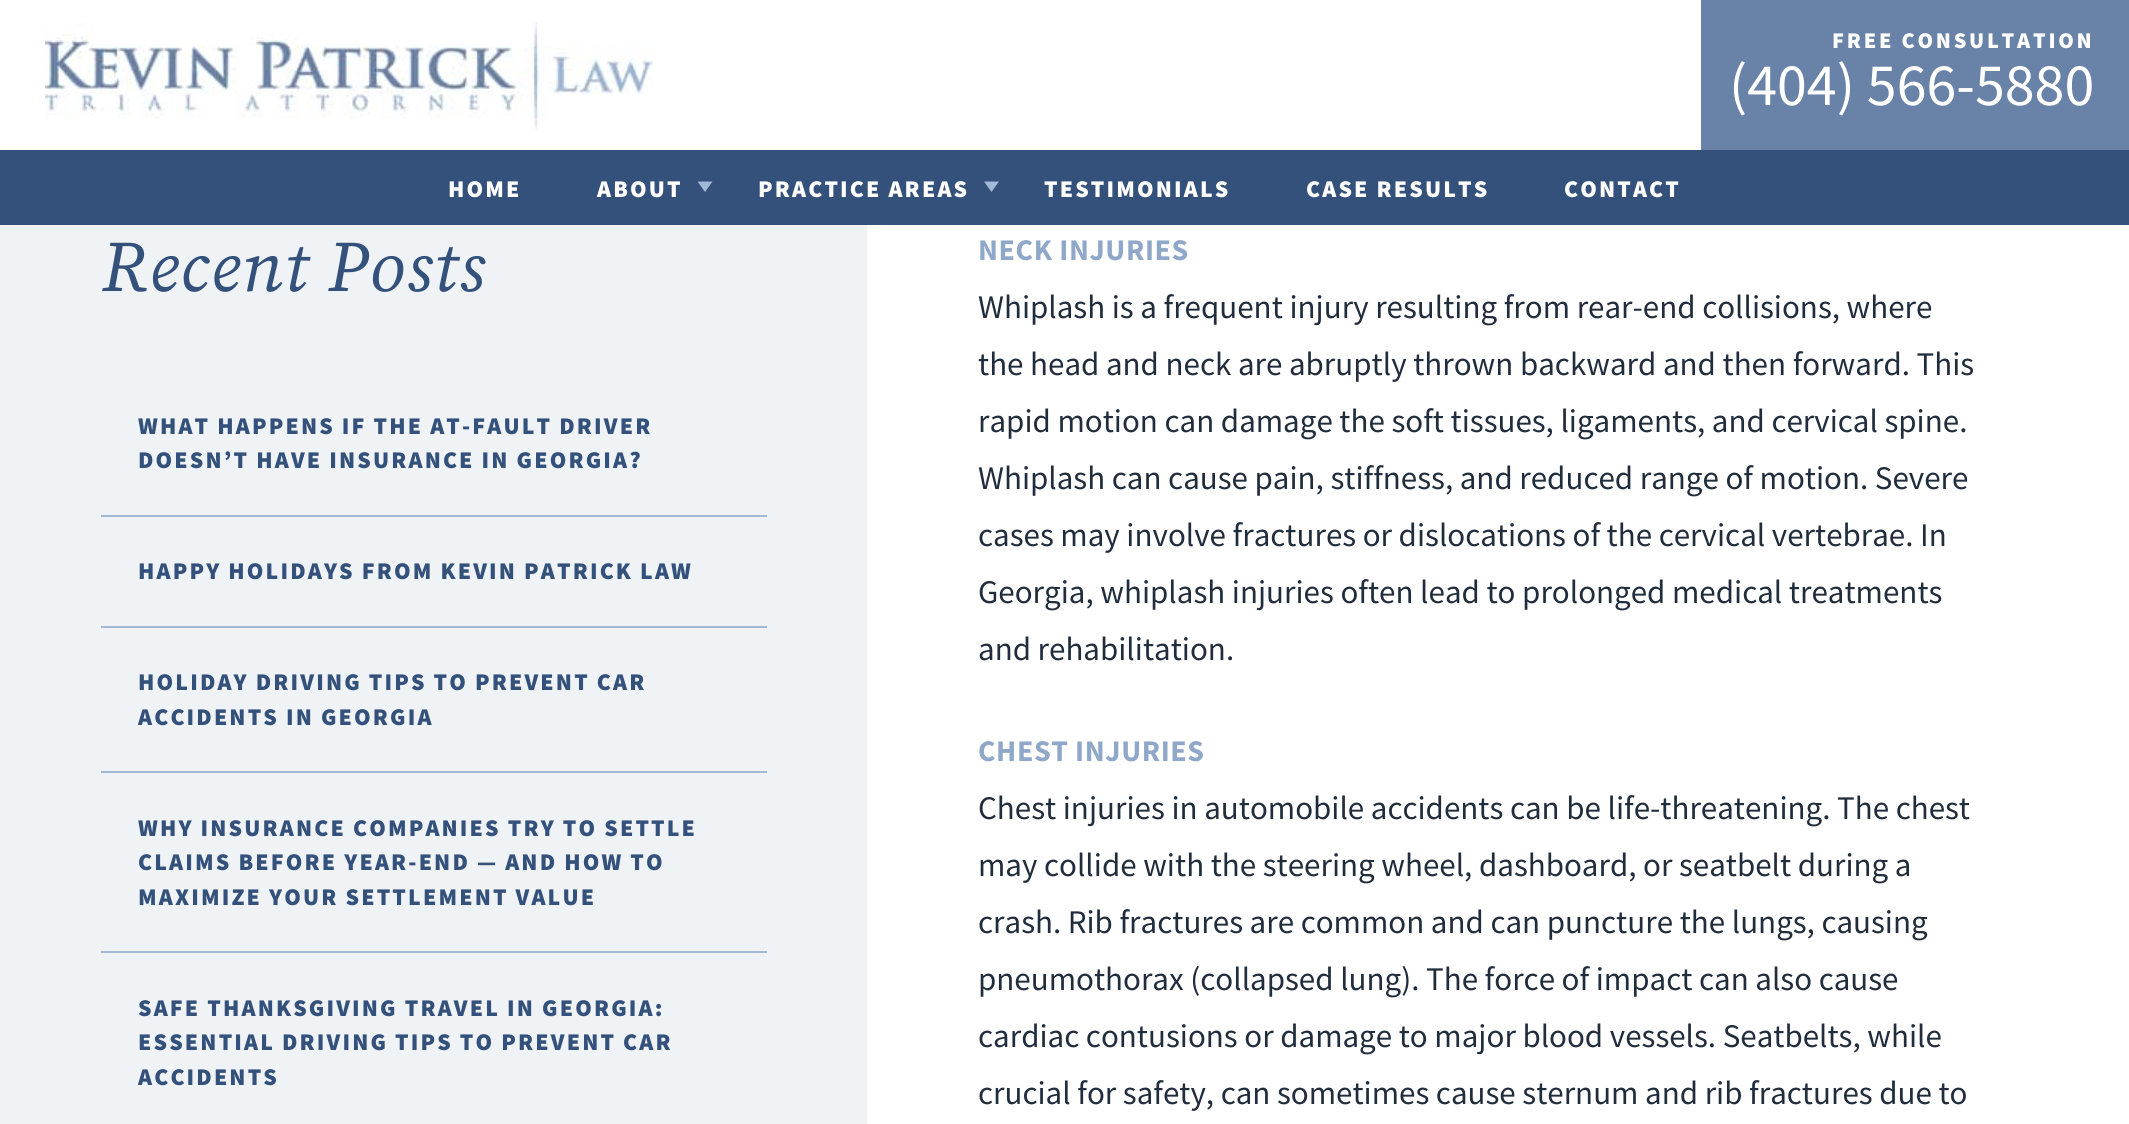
import math
import cairocffi as cairo

surface = cairo.ImageSurface(cairo.FORMAT_RGB24, 2129, 1124)
cr = cairo.Context(surface)
options = cairo.FontOptions()
options.set_hint_metrics(cairo.HINT_METRICS_OFF)
options.set_hint_style(cairo.HINT_STYLE_NONE)
cr.set_font_options(options)
cr.set_miter_limit(4)


def use_color(code):
    cr.set_source_rgb(*(v / 255 for v in bytes.fromhex(code[-6:])))


def spaced_text(x, y, s, letter, word):
    cr.move_to(x, y)
    for ch in s:
        cr.show_text(ch)
        cr.rel_move_to(letter + word * (ch == ' '), 0)


def picture(path, x, y, w, h):
    cr.save()
    cr.set_source_surface(cairo.ImageSurface.create_from_png(path), x, y)
    cr.rectangle(x, y, w, h)
    cr.fill()
    cr.restore()


use_color("#ffffff")
cr.paint()
picture("img1.png", 45, 22, 608, 107)
use_color("#6982a7")
cr.rectangle(1701, 0, 428, 150)
cr.fill()
cr.select_font_face("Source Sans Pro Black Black")
cr.set_font_size(22.5)
use_color("#ffffff")
spaced_text(1832, 48, "FREE CONSULTATION", 2.75, 0)
cr.select_font_face("Source Sans Pro")
cr.set_font_size(60)
cr.move_to(1729, 105)
cr.show_text("(404) 566-5880")
use_color("#34517b")
cr.rectangle(0, 150, 2129, 75)
cr.fill()
cr.select_font_face("Source Sans Pro Black Black")
cr.set_font_size(24)
use_color("#ffffff")
spaced_text(448, 197, "HOME", 2.15, 0)
spaced_text(597, 197, "ABOUT", 2.15, 0)
use_color("#a2b9d6")
cr.new_path()
cr.move_to(697.5, 181.5)
cr.line_to(712.5, 181.5)
cr.line_to(705, 192)
cr.close_path()
cr.fill()
use_color("#ffffff")
spaced_text(758, 197, "PRACTICE AREAS", 2.15, 0)
use_color("#a2b9d6")
cr.new_path()
cr.move_to(984, 181.5)
cr.line_to(999, 181.5)
cr.line_to(991.5, 192)
cr.close_path()
cr.fill()
use_color("#ffffff")
spaced_text(1044, 197, "TESTIMONIALS", 2.15, 0)
spaced_text(1306, 197, "CASE RESULTS", 2.15, 0)
spaced_text(1564, 197, "CONTACT", 2.15, 0)
use_color("#f0f3f6")
cr.rectangle(0, 225, 867, 899)
cr.fill()
cr.select_font_face("Source Serif Pro", cairo.FONT_SLANT_ITALIC)
cr.set_font_size(72)
use_color("#34517b")
spaced_text(101, 291, "Recent Posts", 1.5, 0)
use_color("#a2b9d6")
cr.rectangle(101, 515, 666, 2)
cr.fill()
cr.select_font_face("Source Sans Pro Black Black")
cr.set_font_size(24)
use_color("#34517b")
spaced_text(138, 434, "WHAT HAPPENS IF THE AT-FAULT DRIVER", 2.15, 0)
spaced_text(138, 468, "DOESN’T HAVE INSURANCE IN GEORGIA?", 2.15, 0)
use_color("#a2b9d6")
cr.rectangle(101, 626, 666, 2)
cr.fill()
use_color("#34517b")
spaced_text(138, 579, "HAPPY HOLIDAYS FROM KEVIN PATRICK LAW", 2.15, 0)
use_color("#a2b9d6")
cr.rectangle(101, 771, 666, 2)
cr.fill()
use_color("#34517b")
spaced_text(138, 690, "HOLIDAY DRIVING TIPS TO PREVENT CAR", 2.15, 0)
spaced_text(138, 725, "ACCIDENTS IN GEORGIA", 2.15, 0)
use_color("#a2b9d6")
cr.rectangle(101, 951, 666, 2)
cr.fill()
use_color("#34517b")
spaced_text(138, 836, "WHY INSURANCE COMPANIES TRY TO SETTLE", 2.15, 0)
spaced_text(138, 870, "CLAIMS BEFORE YEAR-END — AND HOW TO", 2.15, 0)
spaced_text(138, 905, "MAXIMIZE YOUR SETTLEMENT VALUE", 2.15, 0)
spaced_text(138, 1016, "SAFE THANKSGIVING TRAVEL IN GEORGIA:", 2.15, 0)
spaced_text(138, 1050, "ESSENTIAL DRIVING TIPS TO PREVENT CAR", 2.15, 0)
spaced_text(138, 1085, "ACCIDENTS", 2.15, 0)
cr.select_font_face("Source Sans Pro", cairo.FONT_SLANT_NORMAL, cairo.FONT_WEIGHT_BOLD)
cr.set_font_size(30)
use_color("#8fa8c9")
spaced_text(978, 260, "NECK INJURIES", 0.6, 0)
cr.select_font_face("Source Sans Pro")
cr.set_font_size(33)
use_color("#212d3d")
cr.move_to(978, 318)
cr.show_text("Whiplash is a frequent injury resulting from rear-end collisions, where")
cr.move_to(978, 375)
cr.show_text("the head and neck are abruptly thrown backward and then forward. This")
cr.move_to(978, 432)
cr.show_text("rapid motion can damage the soft tissues, ligaments, and cervical spine.")
cr.move_to(978, 489)
cr.show_text("Whiplash can cause pain, stiffness, and reduced range of motion. Severe")
cr.move_to(978, 546)
cr.show_text("cases may involve fractures or dislocations of the cervical vertebrae. In")
cr.move_to(978, 603)
cr.show_text("Georgia, whiplash injuries often lead to prolonged medical treatments")
cr.move_to(978, 660)
cr.show_text("and rehabilitation.")
cr.select_font_face("Source Sans Pro", cairo.FONT_SLANT_NORMAL, cairo.FONT_WEIGHT_BOLD)
cr.set_font_size(30)
use_color("#8fa8c9")
spaced_text(978, 761, "CHEST INJURIES", 0.6, 0)
cr.select_font_face("Source Sans Pro")
cr.set_font_size(33)
use_color("#212d3d")
cr.move_to(978, 819)
cr.show_text("Chest injuries in automobile accidents can be life-threatening. The chest")
cr.move_to(978, 876)
cr.show_text("may collide with the steering wheel, dashboard, or seatbelt during a")
cr.move_to(978, 933)
cr.show_text("crash. Rib fractures are common and can puncture the lungs, causing")
cr.move_to(978, 990)
cr.show_text("pneumothorax (collapsed lung). The force of impact can also cause")
cr.move_to(978, 1047)
cr.show_text("cardiac contusions or damage to major blood vessels. Seatbelts, while")
cr.move_to(978, 1104)
cr.show_text("crucial for safety, can sometimes cause sternum and rib fractures due to")
surface.write_to_png("result.png")
